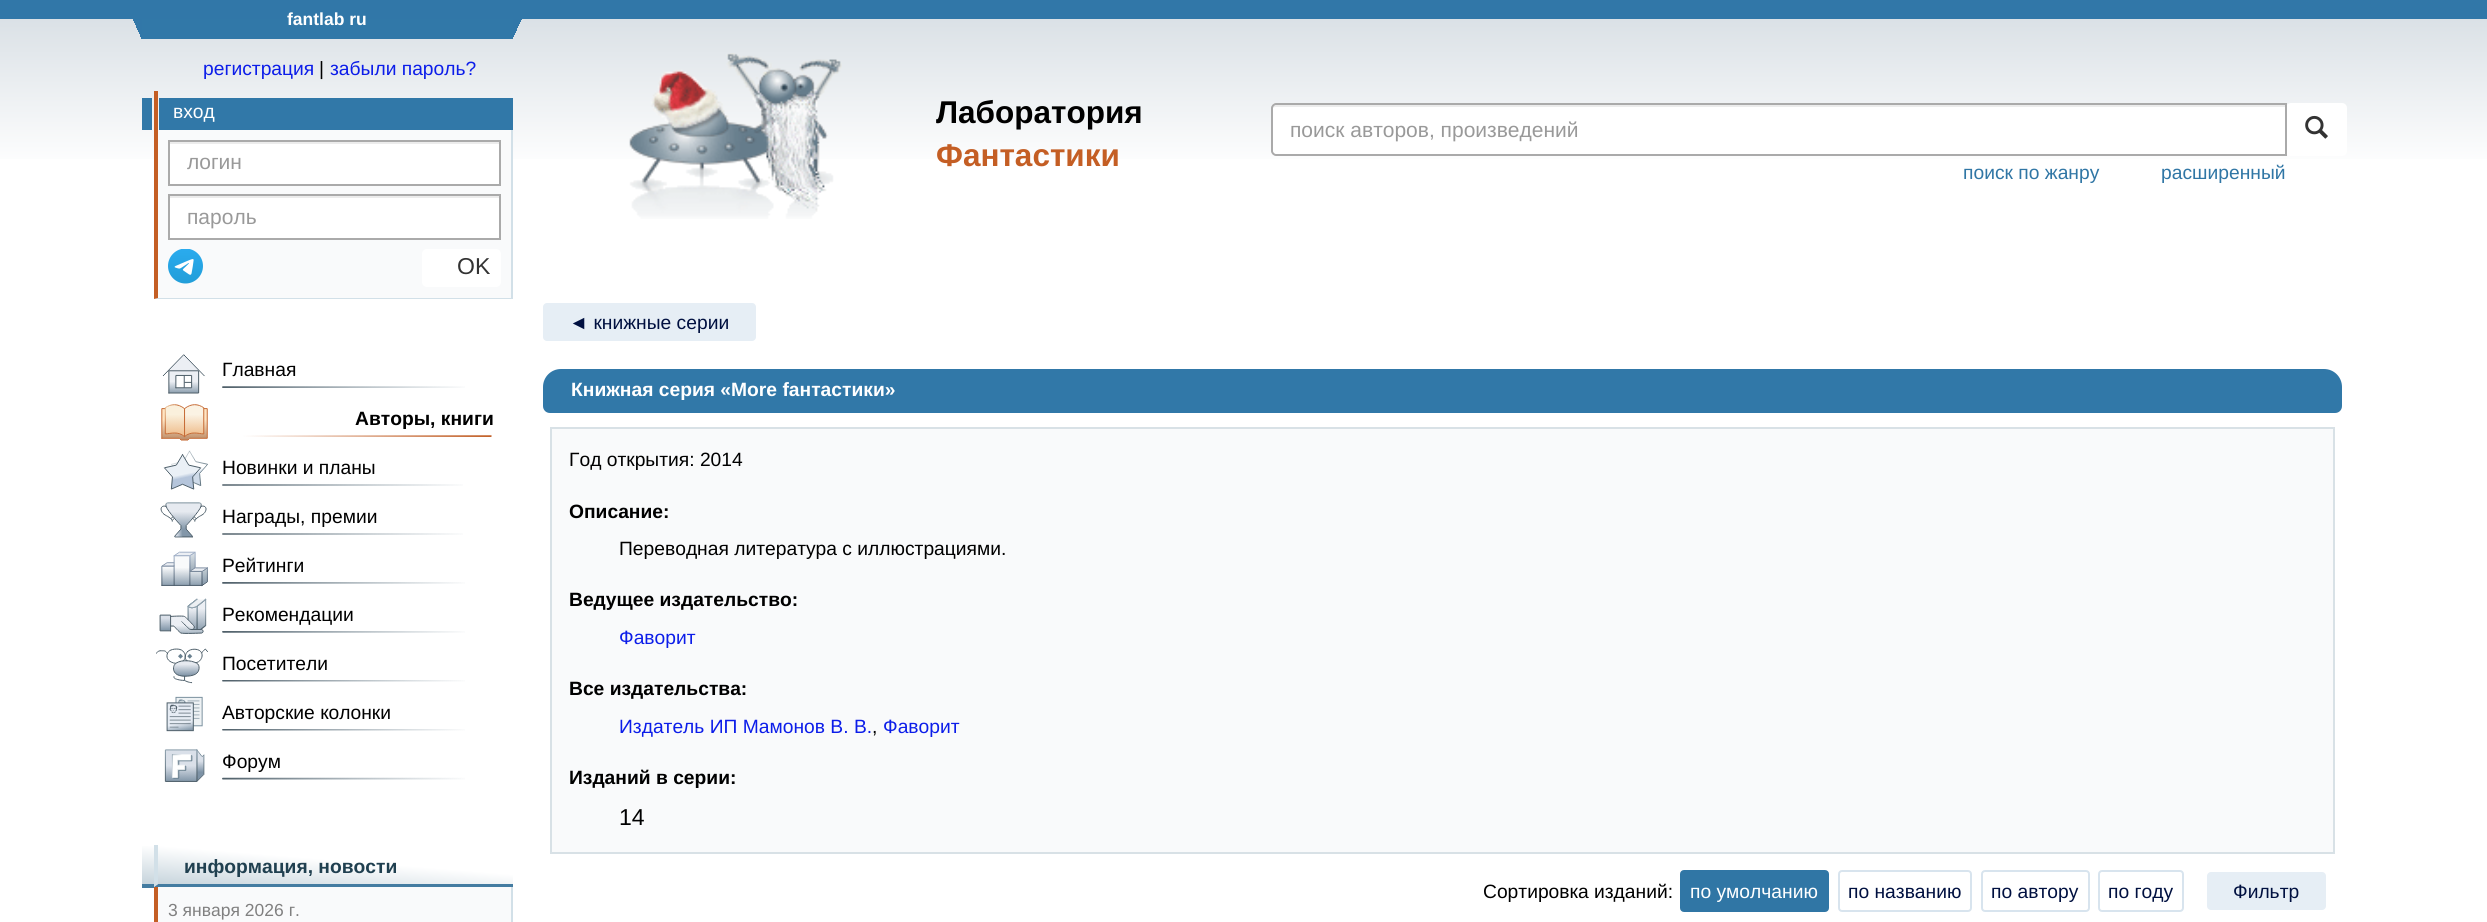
import math
import cairocffi as cairo

surface = cairo.ImageSurface(cairo.FORMAT_RGB24, 2487, 922)
cr = cairo.Context(surface)
options = cairo.FontOptions()
options.set_hint_metrics(cairo.HINT_METRICS_OFF)
options.set_hint_style(cairo.HINT_STYLE_NONE)
cr.set_font_options(options)
cr.set_miter_limit(4)


def use_color(code):
    cr.set_source_rgb(*(v / 255 for v in bytes.fromhex(code[-6:])))


def round_rect(x, y, w, h, r):
    cr.new_sub_path()
    for i, (u, v) in enumerate([(x + w - r, y + h - r), (x + r, y + h - r), (x + r, y + r), (x + w - r, y + r)]):
        cr.arc(u, v, r, i * math.pi / 2, (i + 1) * math.pi / 2)
    cr.close_path()


def picture(path, x, y, w, h):
    cr.save()
    cr.set_source_surface(cairo.ImageSurface.create_from_png(path), x, y)
    cr.rectangle(x, y, w, h)
    cr.fill()
    cr.restore()


use_color("#ffffff")
cr.paint()
gradient = cairo.LinearGradient(1244, 0, 1244, 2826)
gradient.add_color_stop_rgba(0, 0.839, 0.867, 0.89, 1)
gradient.add_color_stop_rgba(0.06, 1, 1, 1, 1)
cr.set_source(gradient)
cr.rectangle(0, 19, 2487, 140)
cr.fill()
use_color("#3177a8")
cr.rectangle(0, 0, 2487, 19)
cr.fill()
gradient = cairo.LinearGradient(118, 26, 148, 13)
gradient.add_color_stop_rgba(0, 0, 0, 0, 0)
gradient.add_color_stop_rgba(0.5, 0.192, 0.467, 0.659, 0)
gradient.add_color_stop_rgba(0.5, 0.192, 0.467, 0.659, 1)
gradient.add_color_stop_rgba(1, 0.192, 0.467, 0.659, 1)
cr.set_source(gradient)
cr.rectangle(133, 19, 9, 20)
cr.fill()
use_color("#3178a8")
cr.rectangle(142, 19, 371, 20)
cr.fill()
cr.select_font_face("Liberation Sans", cairo.FONT_SLANT_NORMAL, cairo.FONT_WEIGHT_BOLD)
cr.set_font_size(17.5)
use_color("#ffffff")
cr.move_to(287, 25)
cr.show_text("fantlab ru")
gradient = cairo.LinearGradient(536, 26, 507, 13)
gradient.add_color_stop_rgba(0, 0, 0, 0, 0)
gradient.add_color_stop_rgba(0.5, 0.192, 0.467, 0.659, 0)
gradient.add_color_stop_rgba(0.5, 0.192, 0.467, 0.659, 1)
gradient.add_color_stop_rgba(1, 0.192, 0.467, 0.659, 1)
cr.set_source(gradient)
cr.rectangle(513, 19, 9, 18)
cr.fill()
cr.select_font_face("Liberation Sans")
cr.set_font_size(19.25)
use_color("#0c1de9")
cr.move_to(203, 75)
cr.show_text("регистрация")
use_color("#000000")
cr.move_to(319, 75)
cr.show_text("|")
use_color("#0c1de9")
cr.move_to(330, 75)
cr.show_text("забыли пароль?")
use_color("#3178a8")
cr.rectangle(142, 98, 10, 32)
cr.fill()
use_color("#c45e24")
cr.rectangle(154, 91, 4, 39)
cr.fill()
use_color("#3178a8")
cr.rectangle(159, 98, 354, 32)
cr.fill()
use_color("#ffffff")
cr.move_to(173, 118)
cr.show_text("вход")
use_color("#f9fafb")
cr.rectangle(154, 130, 357, 169)
cr.fill()
use_color("#d2e0e8")
cr.rectangle(511, 130, 2, 169)
cr.fill()
cr.new_path()
cr.move_to(513, 299)
cr.line_to(154, 299)
cr.line_to(158, 298)
cr.line_to(511, 298)
cr.close_path()
cr.fill()
use_color("#c45e24")
cr.new_path()
cr.move_to(154, 299)
cr.line_to(154, 130)
cr.line_to(158, 130)
cr.line_to(158, 298)
cr.close_path()
cr.fill()
use_color("#ffffff")
cr.rectangle(170, 144, 329, 40)
cr.fill()
use_color("#ececec")
cr.rectangle(170, 142, 329, 2)
cr.fill()
cr.rectangle(169, 141, 331, 44)
use_color("#aaaaaa")
cr.stroke()
cr.set_font_size(21)
use_color("#999999")
cr.move_to(187, 169)
cr.show_text("логин")
use_color("#ffffff")
cr.rectangle(170, 198, 329, 40)
cr.fill()
use_color("#ececec")
cr.rectangle(170, 196, 329, 2)
cr.fill()
cr.rectangle(169, 195, 331, 44)
use_color("#aaaaaa")
cr.stroke()
use_color("#999999")
cr.move_to(187, 224)
cr.show_text("пароль")
picture("img1.png", 168, 249, 35, 35)
use_color("#ffffff")
round_rect(422, 249, 79, 38, 5)
cr.fill()
cr.set_font_size(23)
use_color("#333333")
cr.move_to(457, 274)
cr.show_text("OK")
picture("img2.png", 629, 53, 213, 166)
cr.select_font_face("Liberation Sans", cairo.FONT_SLANT_NORMAL, cairo.FONT_WEIGHT_BOLD)
cr.set_font_size(31.5)
use_color("#000000")
cr.move_to(936, 123)
cr.show_text("Лаборатория")
use_color("#c45e24")
cr.move_to(936, 166)
cr.show_text("Фантастики")
use_color("#ffffff")
round_rect(2286, 103, 61, 53, 5)
cr.fill()
cr.new_path()
cr.move_to(1276, 103)
cr.line_to(2287, 103)
cr.line_to(2287, 156)
cr.line_to(1276, 156)
cr.curve_to(1273, 156, 1271, 154, 1271, 151)
cr.line_to(1271, 108)
cr.curve_to(1271, 105, 1273, 103, 1276, 103)
cr.close_path()
cr.fill()
use_color("#ececec")
cr.new_path()
cr.move_to(1276, 107)
cr.line_to(2286, 107)
cr.line_to(2286, 105)
cr.line_to(1276, 105)
cr.curve_to(1273, 105, 1272, 107, 1272, 110)
cr.curve_to(1272, 108, 1274, 107, 1276, 107)
cr.close_path()
cr.fill()
cr.new_path()
cr.move_to(1276, 104)
cr.line_to(2286, 104)
cr.line_to(2286, 155)
cr.line_to(1276, 155)
cr.curve_to(1274, 155, 1272, 153, 1272, 151)
cr.line_to(1272, 108)
cr.curve_to(1272, 106, 1274, 104, 1276, 104)
cr.close_path()
use_color("#aaaaaa")
cr.stroke()
cr.select_font_face("Liberation Sans")
cr.set_font_size(21)
use_color("#999999")
cr.move_to(1290, 137)
cr.show_text("поиск авторов, произведений")
picture("img3.png", 2305, 115, 23, 24)
cr.set_font_size(19.25)
use_color("#3076a5")
cr.move_to(1963, 179)
cr.show_text("поиск по жанру")
cr.move_to(2161, 179)
cr.show_text("расширенный")
picture("img4.png", 162, 354, 303, 40)
use_color("#000000")
cr.move_to(222, 376)
cr.show_text("Главная")
picture("img5.png", 161, 404, 331, 37)
cr.select_font_face("Liberation Sans", cairo.FONT_SLANT_NORMAL, cairo.FONT_WEIGHT_BOLD)
cr.move_to(355, 425)
cr.show_text("Авторы, книги")
picture("img6.png", 163, 450, 300, 40)
cr.select_font_face("Liberation Sans")
cr.move_to(222, 474)
cr.show_text("Новинки и планы")
picture("img7.png", 160, 502, 303, 36)
cr.move_to(222, 523)
cr.show_text("Награды, премии")
picture("img8.png", 161, 551, 304, 36)
cr.move_to(222, 572)
cr.show_text("Рейтинги")
picture("img9.png", 159, 598, 306, 36)
cr.move_to(222, 621)
cr.show_text("Рекомендации")
picture("img10.png", 156, 648, 309, 36)
cr.move_to(222, 670)
cr.show_text("Посетители")
picture("img11.png", 166, 696, 299, 36)
cr.move_to(222, 719)
cr.show_text("Авторские колонки")
picture("img12.png", 164, 749, 301, 33)
cr.move_to(222, 768)
cr.show_text("Форум")
gradient = cairo.LinearGradient(324, 903, 330, 829)
gradient.add_color_stop_rgba(0, 0.753, 0.812, 0.847, 1)
gradient.add_color_stop_rgba(0.59, 1, 1, 1, 1)
cr.set_source(gradient)
cr.rectangle(142, 846, 371, 41)
cr.fill()
use_color("#447ca1")
cr.new_path()
cr.move_to(513, 887)
cr.line_to(154, 887)
cr.line_to(158, 884)
cr.line_to(513, 884)
cr.close_path()
cr.fill()
use_color("#d2e0e8")
cr.new_path()
cr.move_to(154, 887)
cr.line_to(154, 845)
cr.line_to(158, 845)
cr.line_to(158, 884)
cr.close_path()
cr.fill()
cr.select_font_face("Liberation Sans", cairo.FONT_SLANT_NORMAL, cairo.FONT_WEIGHT_BOLD)
use_color("#204050")
cr.move_to(184, 873)
cr.show_text("информация, новости")
use_color("#447ca1")
cr.rectangle(142, 884, 12, 4)
cr.fill()
use_color("#f9fafb")
cr.rectangle(158, 887, 353, 35)
cr.fill()
use_color("#d2e0e8")
cr.rectangle(511, 887, 2, 35)
cr.fill()
use_color("#c45e24")
cr.new_path()
cr.move_to(154, 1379)
cr.line_to(154, 887)
cr.line_to(158, 887)
cr.line_to(158, 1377)
cr.close_path()
cr.fill()
cr.select_font_face("Liberation Sans")
cr.set_font_size(17.5)
use_color("#808080")
cr.move_to(168, 916)
cr.show_text("3 января 2026 г.")
use_color("#e6eef5")
round_rect(543, 303, 213, 38, 4)
cr.fill()
cr.set_font_size(19.25)
use_color("#001040")
cr.move_to(569, 329)
cr.show_text("◄ книжные серии")
use_color("#3178a8")
cr.new_path()
cr.move_to(561, 369)
cr.line_to(2324, 369)
cr.curve_to(2334, 369, 2342, 377, 2342, 387)
cr.line_to(2342, 406)
cr.curve_to(2342, 410, 2339, 413, 2335, 413)
cr.line_to(550, 413)
cr.curve_to(546, 413, 543, 410, 543, 406)
cr.line_to(543, 387)
cr.curve_to(543, 377, 551, 369, 561, 369)
cr.close_path()
cr.fill()
cr.select_font_face("Liberation Sans", cairo.FONT_SLANT_NORMAL, cairo.FONT_WEIGHT_BOLD)
use_color("#ffffff")
cr.move_to(571, 396)
cr.show_text("Книжная серия «More fантастики»")
use_color("#f9fafb")
cr.rectangle(551, 428, 1783, 425)
cr.fill_preserve()
use_color("#d8e1e6")
cr.stroke()
cr.select_font_face("Liberation Sans")
use_color("#000000")
cr.move_to(569, 466)
cr.show_text("Год открытия: 2014")
cr.select_font_face("Liberation Sans", cairo.FONT_SLANT_NORMAL, cairo.FONT_WEIGHT_BOLD)
cr.move_to(569, 518)
cr.show_text("Описание:")
cr.select_font_face("Liberation Sans")
cr.move_to(619, 555)
cr.show_text("Переводная литература с иллюстрациями.")
cr.select_font_face("Liberation Sans", cairo.FONT_SLANT_NORMAL, cairo.FONT_WEIGHT_BOLD)
cr.move_to(569, 606)
cr.show_text("Ведущее издательство:")
cr.select_font_face("Liberation Sans")
use_color("#0c1de9")
cr.move_to(619, 644)
cr.show_text("Фаворит")
cr.select_font_face("Liberation Sans", cairo.FONT_SLANT_NORMAL, cairo.FONT_WEIGHT_BOLD)
use_color("#000000")
cr.move_to(569, 695)
cr.show_text("Все издательства:")
cr.select_font_face("Liberation Sans")
use_color("#0c1de9")
cr.move_to(619, 733)
cr.show_text("Издатель ИП Мамонов В. В.")
use_color("#000000")
cr.move_to(872, 733)
cr.show_text(",")
use_color("#0c1de9")
cr.move_to(883, 733)
cr.show_text("Фаворит")
cr.select_font_face("Liberation Sans", cairo.FONT_SLANT_NORMAL, cairo.FONT_WEIGHT_BOLD)
use_color("#000000")
cr.move_to(569, 784)
cr.show_text("Изданий в серии:")
cr.select_font_face("Liberation Sans")
cr.set_font_size(23)
cr.move_to(619, 825)
cr.show_text("14")
cr.set_font_size(19.25)
cr.move_to(1483, 898)
cr.show_text("Сортировка изданий:")
use_color("#3076a5")
round_rect(1681, 871, 147, 40, 3)
cr.fill_preserve()
cr.stroke()
use_color("#ffffff")
cr.move_to(1690, 898)
cr.show_text("по умолчанию")
round_rect(1839, 871, 132, 40, 3)
use_color("#d8e4ee")
cr.stroke()
use_color("#001040")
cr.move_to(1848, 898)
cr.show_text("по названию")
round_rect(1982, 871, 107, 40, 3)
use_color("#d8e4ee")
cr.stroke()
use_color("#001040")
cr.move_to(1991, 898)
cr.show_text("по автору")
round_rect(2099, 871, 84, 40, 3)
use_color("#d8e4ee")
cr.stroke()
use_color("#001040")
cr.move_to(2108, 898)
cr.show_text("по году")
use_color("#e6eef5")
round_rect(2207, 872, 119, 38, 4)
cr.fill()
use_color("#001040")
cr.move_to(2233, 898)
cr.show_text("Фильтр")
surface.write_to_png("result.png")
